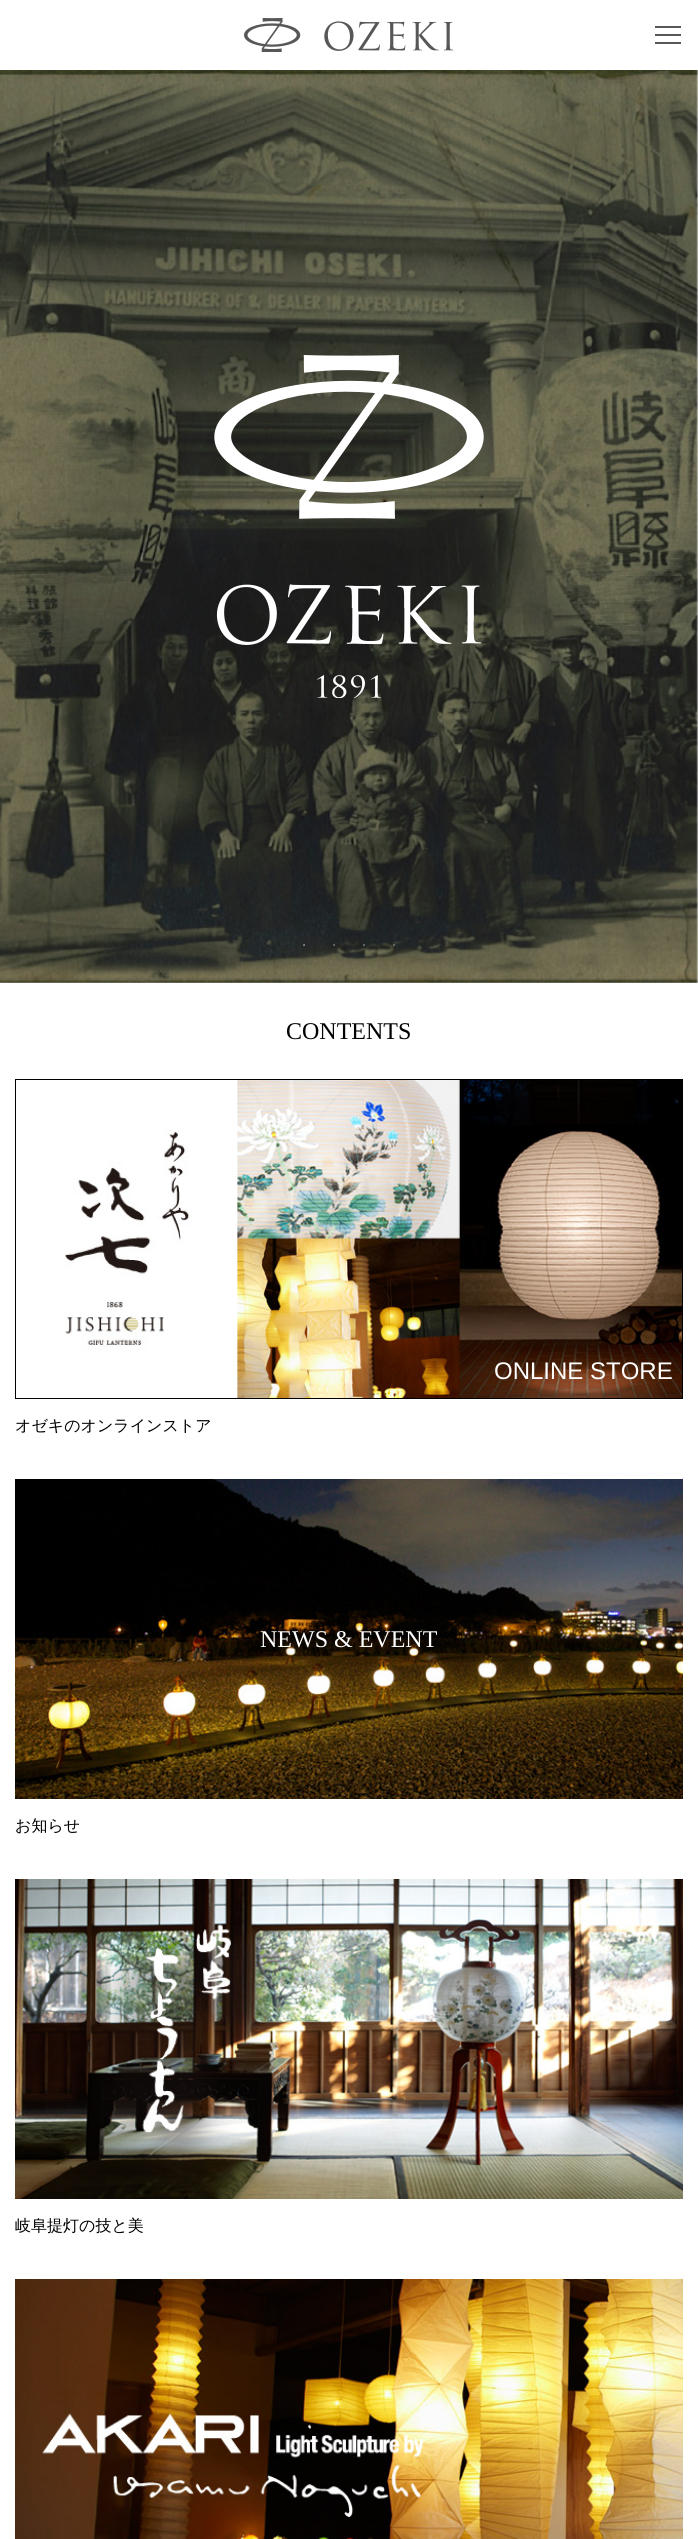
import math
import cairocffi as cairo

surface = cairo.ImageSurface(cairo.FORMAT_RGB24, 698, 2539)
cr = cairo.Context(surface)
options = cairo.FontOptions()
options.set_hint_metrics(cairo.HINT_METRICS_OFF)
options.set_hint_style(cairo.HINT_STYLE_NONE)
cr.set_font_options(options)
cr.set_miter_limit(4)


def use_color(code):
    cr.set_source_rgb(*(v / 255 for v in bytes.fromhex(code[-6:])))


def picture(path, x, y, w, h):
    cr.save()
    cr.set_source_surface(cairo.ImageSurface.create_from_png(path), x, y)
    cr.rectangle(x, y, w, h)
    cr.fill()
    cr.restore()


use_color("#ffffff")
cr.paint()
picture("img1.png", 244, 18, 210, 34)
use_color("#595757")
cr.rectangle(655, 26, 26, 2)
cr.fill()
cr.rectangle(655, 34, 26, 2)
cr.fill()
cr.rectangle(655, 42, 26, 2)
cr.fill()
picture("img3.png", 0, 70, 698, 913)
picture("img2.png", 214, 355, 270, 343)
cr.select_font_face("Liberation Serif")
cr.set_font_size(6)
use_color("#ffffff")
cr.move_to(303, 947)
cr.show_text("•")
use_color("#cccccc")
cr.move_to(333, 947)
cr.show_text("•")
cr.move_to(363, 947)
cr.show_text("•")
cr.move_to(393, 947)
cr.show_text("•")
cr.set_font_size(24)
use_color("#000000")
cr.move_to(286, 1039)
cr.show_text("CONTENTS")
cr.rectangle(15.5, 1079.5, 667, 319)
cr.set_line_width(1)
cr.stroke()
picture("img4.png", 65, 1080, 617, 318)
cr.select_font_face("Liberation Sans")
use_color("#ffffff")
cr.move_to(494, 1379)
cr.show_text("ONLINE STORE")
cr.select_font_face("WenQuanYi Zen Hei Medium")
cr.set_font_size(16)
use_color("#000000")
cr.move_to(15, 1431)
cr.show_text("オゼキのオンラインストア")
picture("img5.png", 15, 1479, 668, 320)
cr.select_font_face("Liberation Serif")
cr.set_font_size(24)
use_color("#ffffff")
cr.move_to(260, 1647)
cr.show_text("NEWS & EVENT")
cr.select_font_face("WenQuanYi Zen Hei Medium")
cr.set_font_size(16)
use_color("#000000")
cr.move_to(15, 1831)
cr.show_text("お知らせ")
picture("img6.png", 15, 1879, 668, 320)
cr.move_to(15, 2231)
cr.show_text("岐阜提灯の技と美")
picture("img7.png", 15, 2279, 668, 260)
surface.write_to_png("result.png")
